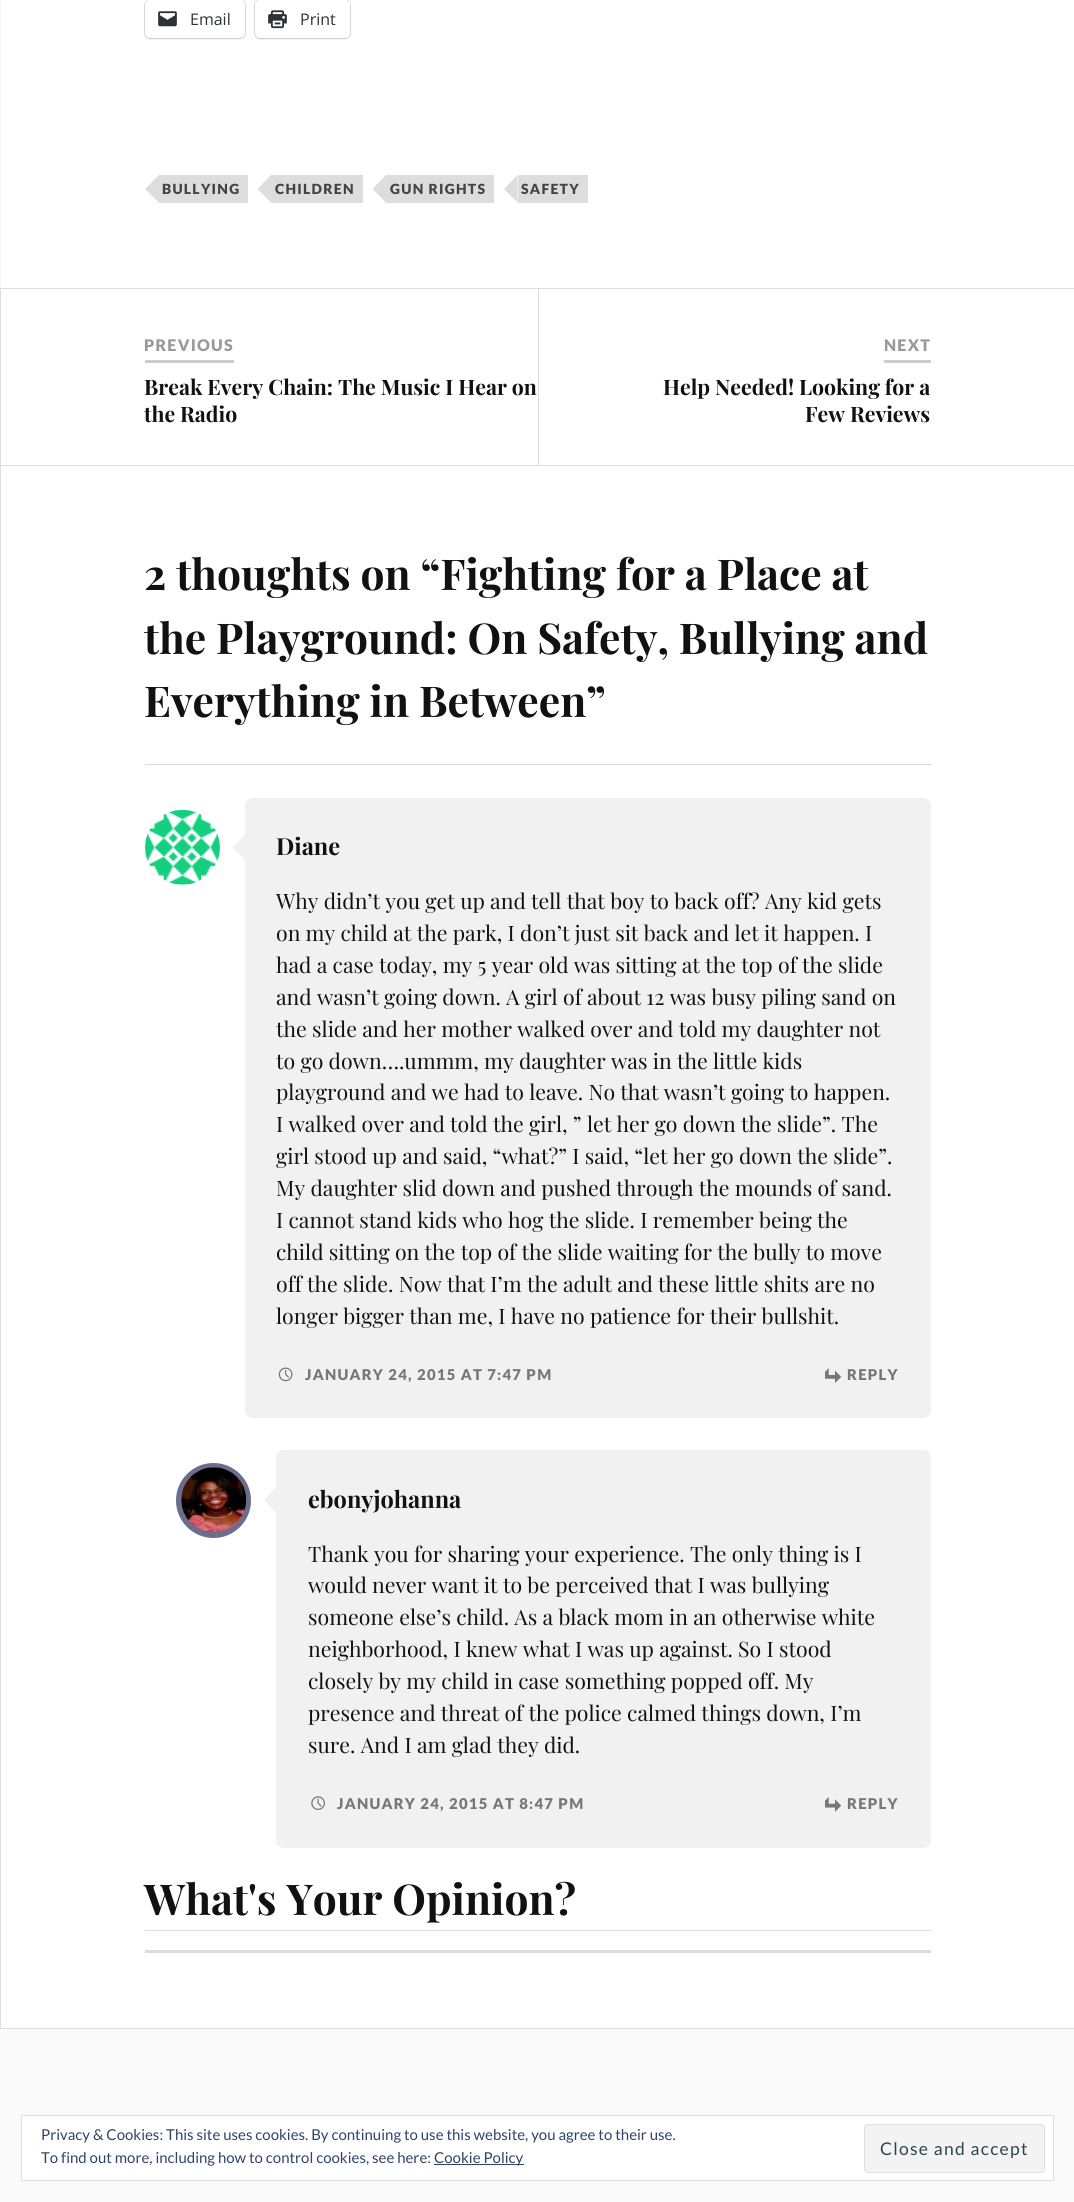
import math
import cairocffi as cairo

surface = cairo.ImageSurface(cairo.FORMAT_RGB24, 1074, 2202)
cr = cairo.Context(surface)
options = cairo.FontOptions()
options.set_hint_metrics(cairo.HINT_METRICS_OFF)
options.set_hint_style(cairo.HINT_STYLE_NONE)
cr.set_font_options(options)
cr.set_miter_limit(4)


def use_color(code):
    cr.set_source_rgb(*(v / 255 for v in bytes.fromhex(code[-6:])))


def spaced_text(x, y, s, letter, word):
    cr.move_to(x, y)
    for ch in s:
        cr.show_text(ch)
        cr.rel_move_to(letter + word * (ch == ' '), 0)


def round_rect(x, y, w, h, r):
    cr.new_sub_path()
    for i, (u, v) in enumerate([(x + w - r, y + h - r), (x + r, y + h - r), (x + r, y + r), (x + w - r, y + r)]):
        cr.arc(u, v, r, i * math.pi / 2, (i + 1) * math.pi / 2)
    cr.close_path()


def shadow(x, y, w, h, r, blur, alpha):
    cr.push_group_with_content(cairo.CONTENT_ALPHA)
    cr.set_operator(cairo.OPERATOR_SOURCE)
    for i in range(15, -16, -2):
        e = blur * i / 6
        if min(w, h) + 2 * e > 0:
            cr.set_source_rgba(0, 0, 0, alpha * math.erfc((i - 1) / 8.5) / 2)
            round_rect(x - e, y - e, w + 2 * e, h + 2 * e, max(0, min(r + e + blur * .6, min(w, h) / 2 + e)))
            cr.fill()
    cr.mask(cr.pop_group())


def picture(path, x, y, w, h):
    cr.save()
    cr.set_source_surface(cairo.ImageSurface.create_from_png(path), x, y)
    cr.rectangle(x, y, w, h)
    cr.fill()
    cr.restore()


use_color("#fafafa")
cr.paint()
use_color("#ffffff")
cr.rectangle(1, 0, 1073, 288)
cr.fill()
use_color("#f5f5f5")
cr.new_path()
cr.move_to(0, 288)
cr.line_to(0, -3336)
cr.line_to(1, -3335)
cr.line_to(1, 288)
cr.close_path()
cr.fill()
round_rect(144.5, -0.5, 101, 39, 5.5)
use_color("#e0e0e0")
cr.set_line_width(1)
cr.stroke()
use_color("#000000")
shadow(145, 1, 100, 38, 5, 1, 0.12)
use_color("#ffffff")
round_rect(145, 0, 100, 38, 5)
cr.fill()
picture("img1.png", 158, 11, 19, 16)
cr.select_font_face("Open Sans")
cr.set_font_size(16)
use_color("#2c3338")
cr.move_to(190, 25)
cr.show_text("Email")
round_rect(254.5, -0.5, 96, 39, 5.5)
use_color("#e0e0e0")
cr.stroke()
use_color("#000000")
shadow(255, 1, 95, 38, 5, 1, 0.12)
use_color("#ffffff")
round_rect(255, 0, 95, 38, 5)
cr.fill()
picture("img2.png", 268, 10, 19, 19)
use_color("#2c3338")
cr.move_to(300, 25)
cr.show_text("Print")
use_color("#dddddd")
cr.rectangle(159, 175, 89, 28)
cr.fill()
cr.new_path()
cr.move_to(159, 175)
cr.line_to(159, 202.5)
cr.line_to(145, 189)
cr.close_path()
cr.fill()
cr.select_font_face("Lato Black")
cr.set_font_size(14)
use_color("#444444")
spaced_text(162, 194, "BULLYING", 1.25, 0)
use_color("#dddddd")
cr.rectangle(271, 175, 92, 28)
cr.fill()
cr.new_path()
cr.move_to(271, 175)
cr.line_to(271, 202.5)
cr.line_to(257.5, 189)
cr.close_path()
cr.fill()
use_color("#444444")
spaced_text(275, 194, "CHILDREN", 1.25, 0)
use_color("#dddddd")
cr.rectangle(386, 175, 108, 28)
cr.fill()
cr.new_path()
cr.move_to(386, 175)
cr.line_to(386, 202.5)
cr.line_to(372.5, 189)
cr.close_path()
cr.fill()
use_color("#444444")
spaced_text(390, 194, "GUN RIGHTS", 1.25, 0)
use_color("#dddddd")
cr.rectangle(518, 175, 70, 28)
cr.fill()
cr.new_path()
cr.move_to(517.5, 175)
cr.line_to(517.5, 202.5)
cr.line_to(504, 189)
cr.close_path()
cr.fill()
use_color("#444444")
spaced_text(521, 194, "SAFETY", 1.25, 0)
use_color("#ffffff")
cr.rectangle(0.5, 288.5, 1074, 177)
cr.fill_preserve()
use_color("#dddddd")
cr.stroke()
cr.rectangle(538, 289, 1, 176)
cr.fill()
use_color("#cccccc")
cr.rectangle(145, 360, 89, 3)
cr.fill()
cr.set_font_size(16)
use_color("#999999")
spaced_text(144, 351, "PREVIOUS", 1.25, 0)
cr.select_font_face("Playfair Display", cairo.FONT_SLANT_NORMAL, cairo.FONT_WEIGHT_BOLD)
cr.set_font_size(21.25)
use_color("#111111")
cr.move_to(144, 395)
cr.show_text("Break Every Chain: The Music I Hear on")
cr.move_to(144, 422)
cr.show_text("the Radio")
use_color("#cccccc")
cr.rectangle(884, 360, 47, 3)
cr.fill()
cr.select_font_face("Lato Black")
cr.set_font_size(16)
use_color("#999999")
spaced_text(884, 351, "NEXT", 1.25, 0)
cr.select_font_face("Playfair Display", cairo.FONT_SLANT_NORMAL, cairo.FONT_WEIGHT_BOLD)
cr.set_font_size(21.25)
use_color("#111111")
cr.move_to(663, 395)
cr.show_text("Help Needed! Looking for a")
cr.move_to(805, 422)
cr.show_text("Few Reviews")
use_color("#ffffff")
cr.rectangle(1, 466, 1073, 1562)
cr.fill()
use_color("#dddddd")
cr.rectangle(0, 2028, 1074, 1)
cr.fill()
cr.rectangle(0, 466, 1, 1563)
cr.fill()
cr.rectangle(145, 764, 786, 1)
cr.fill()
cr.set_font_size(42.5)
use_color("#111111")
cr.move_to(144, 590)
cr.show_text("2 thoughts on “Fighting for a Place at")
cr.move_to(144, 654)
cr.show_text("the Playground: On Safety, Bullying and")
cr.move_to(144, 717)
cr.show_text("Everything in Between”")
use_color("#f1f1f1")
round_rect(245, 798, 686, 620, 8)
cr.fill()
cr.new_path()
cr.move_to(245, 835)
cr.line_to(245, 860)
cr.line_to(232.5, 847.5)
cr.close_path()
cr.fill()
picture("img3.png", 145, 809, 75, 76)
cr.set_font_size(23.5)
use_color("#111111")
cr.move_to(276, 855)
cr.show_text("Diane")
cr.select_font_face("Playfair Display")
cr.set_font_size(21.25)
cr.move_to(276, 909)
cr.show_text("Why didn’t you get up and tell that boy to back off? Any kid gets")
cr.move_to(276, 941)
cr.show_text("on my child at the park, I don’t just sit back and let it happen. I")
cr.move_to(276, 973)
cr.show_text("had a case today, my 5 year old was sitting at the top of the slide")
cr.move_to(276, 1005)
cr.show_text("and wasn’t going down. A girl of about 12 was busy piling sand on")
cr.move_to(276, 1037)
cr.show_text("the slide and her mother walked over and told my daughter not")
cr.move_to(276, 1069)
cr.show_text("to go down….ummm, my daughter was in the little kids")
cr.move_to(276, 1100)
cr.show_text("playground and we had to leave. No that wasn’t going to happen.")
cr.move_to(276, 1132)
cr.show_text("I walked over and told the girl, ” let her go down the slide”. The")
cr.move_to(276, 1164)
cr.show_text("girl stood up and said, “what?” I said, “let her go down the slide”.")
cr.move_to(276, 1196)
cr.show_text("My daughter slid down and pushed through the mounds of sand.")
cr.move_to(276, 1228)
cr.show_text("I cannot stand kids who hog the slide. I remember being the")
cr.move_to(276, 1260)
cr.show_text("child sitting on the top of the slide waiting for the bully to move")
cr.move_to(276, 1292)
cr.show_text("off the slide. Now that I’m the adult and these little shits are no")
cr.move_to(276, 1324)
cr.show_text("longer bigger than me, I have no patience for their bullshit.")
picture("img4.png", 278, 1367, 15, 15)
cr.select_font_face("Lato Black")
cr.set_font_size(14.9)
use_color("#777777")
spaced_text(305, 1380, "JANUARY 24, 2015 AT 7:47 PM", 1.25, 0)
picture("img5.png", 825, 1368, 17, 15)
spaced_text(847, 1380, "REPLY", 1.25, 0)
use_color("#f1f1f1")
round_rect(276, 1450, 655, 398, 8)
cr.fill()
cr.new_path()
cr.move_to(276, 1487.5)
cr.line_to(276, 1512.5)
cr.line_to(264, 1500)
cr.close_path()
cr.fill()
use_color("#6c6c8c")
cr.arc(213.5, 1500.5, 37.5, 0, 2 * math.pi)
cr.fill()
picture("img6.png", 181, 1467, 66, 66)
cr.select_font_face("Playfair Display", cairo.FONT_SLANT_NORMAL, cairo.FONT_WEIGHT_BOLD)
cr.set_font_size(23.5)
use_color("#111111")
cr.move_to(308, 1508)
cr.show_text("ebonyjohanna")
cr.select_font_face("Playfair Display")
cr.set_font_size(21.25)
cr.move_to(308, 1562)
cr.show_text("Thank you for sharing your experience. The only thing is I")
cr.move_to(308, 1593)
cr.show_text("would never want it to be perceived that I was bullying")
cr.move_to(308, 1625)
cr.show_text("someone else’s child. As a black mom in an otherwise white")
cr.move_to(308, 1657)
cr.show_text("neighborhood, I knew what I was up against. So I stood")
cr.move_to(308, 1689)
cr.show_text("closely by my child in case something popped off. My")
cr.move_to(308, 1721)
cr.show_text("presence and threat of the police calmed things down, I’m")
cr.move_to(308, 1753)
cr.show_text("sure. And I am glad they did.")
picture("img7.png", 311, 1796, 14, 14)
cr.select_font_face("Lato Black")
cr.set_font_size(14.9)
use_color("#777777")
spaced_text(337, 1809, "JANUARY 24, 2015 AT 8:47 PM", 1.25, 0)
picture("img8.png", 825, 1797, 17, 15)
spaced_text(847, 1809, "REPLY", 1.25, 0)
use_color("#dddddd")
cr.rectangle(145, 1930, 786, 1)
cr.fill()
cr.select_font_face("Playfair Display", cairo.FONT_SLANT_NORMAL, cairo.FONT_WEIGHT_BOLD)
cr.set_font_size(42.5)
use_color("#111111")
cr.move_to(144, 1915)
cr.show_text("What's Your Opinion?")
use_color("#dcdcde")
cr.rectangle(145, 1950, 786, 3)
cr.fill()
use_color("#ffffff")
cr.rectangle(21.5, 2115.5, 1032, 65)
cr.fill_preserve()
use_color("#dedede")
cr.stroke()
cr.select_font_face("Lato")
cr.set_font_size(15)
use_color("#2e4467")
cr.move_to(41, 2140)
cr.show_text("Privacy & Cookies: This site uses cookies. By continuing to use this website, you agree to their use.")
cr.move_to(41, 2163)
cr.show_text("To find out more, including how to control cookies, see here:")
cr.rectangle(434, 2164, 90, 1)
cr.fill()
cr.move_to(434, 2163)
cr.show_text("Cookie Policy")
use_color("#f3f3f3")
round_rect(864.5, 2124.5, 180, 48, 3.5)
cr.fill_preserve()
use_color("#dedede")
cr.stroke()
cr.set_font_size(17.5)
use_color("#2e4453")
spaced_text(880, 2155, "Close and accept", 1.25, 0)
surface.write_to_png("result.png")
